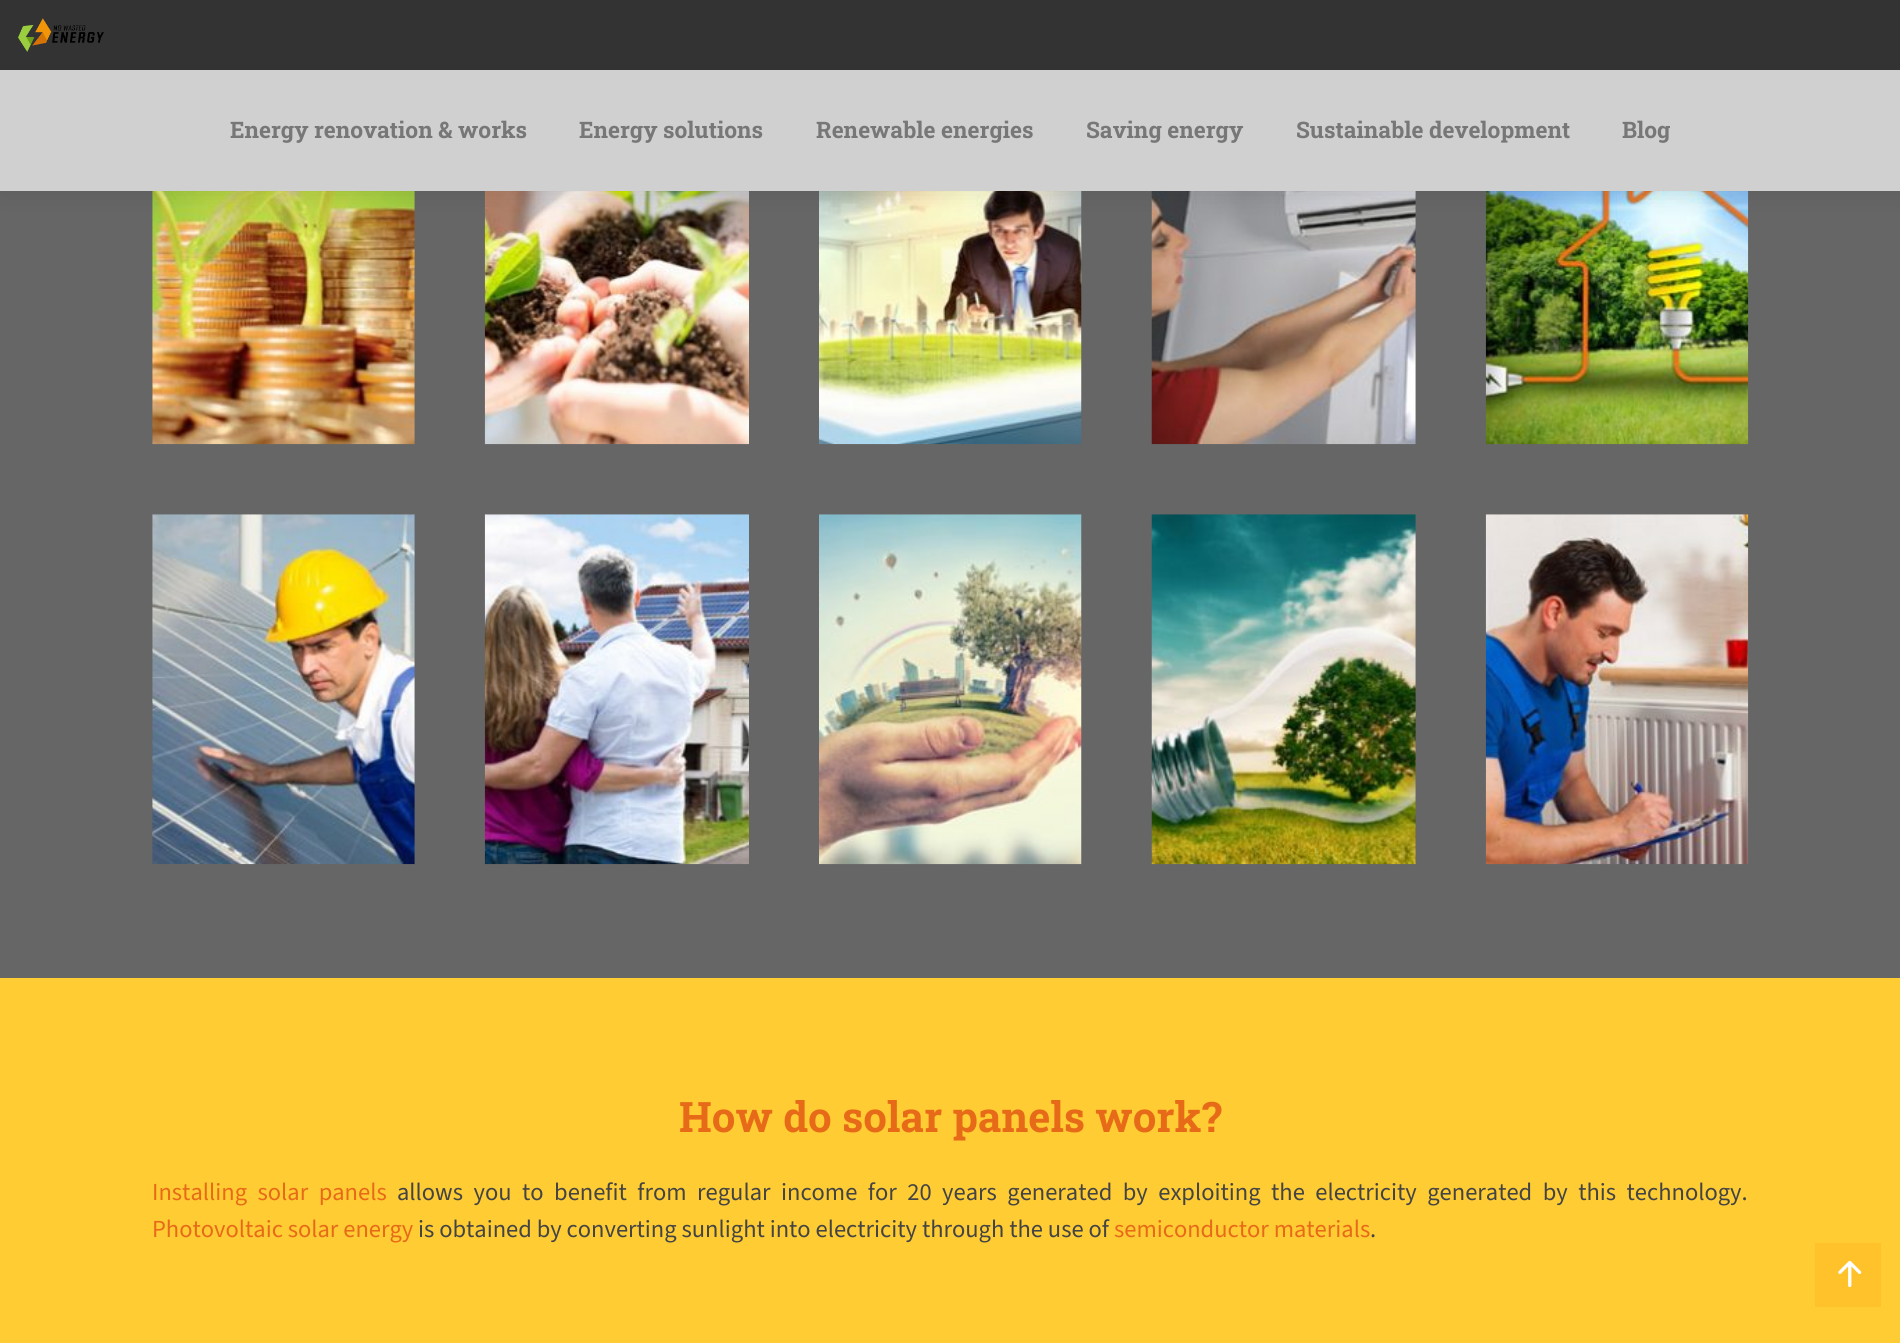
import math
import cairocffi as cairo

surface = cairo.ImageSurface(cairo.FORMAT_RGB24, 1900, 1343)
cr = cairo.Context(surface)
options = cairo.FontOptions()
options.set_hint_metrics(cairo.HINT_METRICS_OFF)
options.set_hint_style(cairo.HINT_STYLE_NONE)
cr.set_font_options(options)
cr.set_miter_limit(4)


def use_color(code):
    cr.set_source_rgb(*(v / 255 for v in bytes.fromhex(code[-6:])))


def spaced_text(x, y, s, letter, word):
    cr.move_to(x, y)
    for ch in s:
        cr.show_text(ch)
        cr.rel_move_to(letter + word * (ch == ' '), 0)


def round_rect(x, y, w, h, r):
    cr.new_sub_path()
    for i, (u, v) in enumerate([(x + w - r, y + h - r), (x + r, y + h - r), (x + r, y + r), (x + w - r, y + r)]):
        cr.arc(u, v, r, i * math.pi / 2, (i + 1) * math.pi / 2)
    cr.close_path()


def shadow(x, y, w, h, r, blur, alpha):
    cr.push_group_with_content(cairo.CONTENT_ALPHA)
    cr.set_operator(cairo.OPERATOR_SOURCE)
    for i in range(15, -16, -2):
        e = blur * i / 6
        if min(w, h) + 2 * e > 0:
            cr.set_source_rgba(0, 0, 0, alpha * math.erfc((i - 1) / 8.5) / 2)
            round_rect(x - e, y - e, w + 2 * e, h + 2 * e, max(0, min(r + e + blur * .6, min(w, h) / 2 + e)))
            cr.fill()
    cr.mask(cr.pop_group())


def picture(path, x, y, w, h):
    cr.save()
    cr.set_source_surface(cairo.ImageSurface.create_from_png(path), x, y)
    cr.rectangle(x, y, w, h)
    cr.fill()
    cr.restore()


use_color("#666666")
cr.paint()
picture("img2.png", 152, 191, 263, 254)
picture("img3.png", 484, 191, 265, 254)
picture("img4.png", 819, 191, 263, 254)
picture("img5.png", 1151, 191, 265, 254)
picture("img6.png", 1485, 191, 264, 254)
use_color("#000000")
shadow(0, 4, 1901, 190, 0, 11.5, 0.1)
use_color("#333333")
cr.rectangle(0, 0, 1900, 70)
cr.fill()
picture("img1.png", 18, 18, 86, 34)
use_color("#d0d0d0")
cr.rectangle(0, 70, 1900, 121)
cr.fill()
cr.select_font_face("Roboto Slab", cairo.FONT_SLANT_NORMAL, cairo.FONT_WEIGHT_BOLD)
cr.set_font_size(22.75)
use_color("#777777")
cr.move_to(230, 138)
cr.show_text("Energy renovation & works")
cr.move_to(579, 138)
cr.show_text("Energy solutions")
cr.move_to(816, 138)
cr.show_text("Renewable energies")
cr.move_to(1086, 138)
cr.show_text("Saving energy")
cr.move_to(1296, 138)
cr.show_text("Sustainable development")
cr.move_to(1622, 138)
cr.show_text("Blog")
picture("img7.png", 152, 514, 263, 351)
picture("img8.png", 484, 514, 265, 351)
picture("img9.png", 819, 514, 263, 351)
picture("img10.png", 1151, 514, 265, 351)
picture("img11.png", 1485, 514, 264, 351)
use_color("#ffcc33")
cr.rectangle(0, 978, 1900, 365)
cr.fill()
cr.set_font_size(42)
use_color("#e76a18")
cr.move_to(679, 1132)
cr.show_text("How do solar panels work?")
cr.select_font_face("Source Sans 3 ExtraLight")
cr.set_font_size(24.5)
spaced_text(152, 1200, "Installing solar panels", 0, 5.6)
use_color("#444444")
spaced_text(397, 1200, "allows you to benefit from regular income for 20 years generated by exploiting the electricity generated by this technology.", 0, 5.6)
use_color("#e76a18")
cr.move_to(152, 1237)
cr.show_text("Photovoltaic solar energy")
use_color("#444444")
cr.move_to(418, 1237)
cr.show_text("is obtained by converting sunlight into electricity through the use of")
use_color("#e76a18")
cr.move_to(1114, 1237)
cr.show_text("semiconductor materials")
use_color("#444444")
cr.move_to(1370, 1237)
cr.show_text(".")
use_color("#ffc22b")
cr.rectangle(1815, 1243, 66, 64)
cr.fill()
picture("img12.png", 1838, 1260, 24, 28)
surface.write_to_png("result.png")
